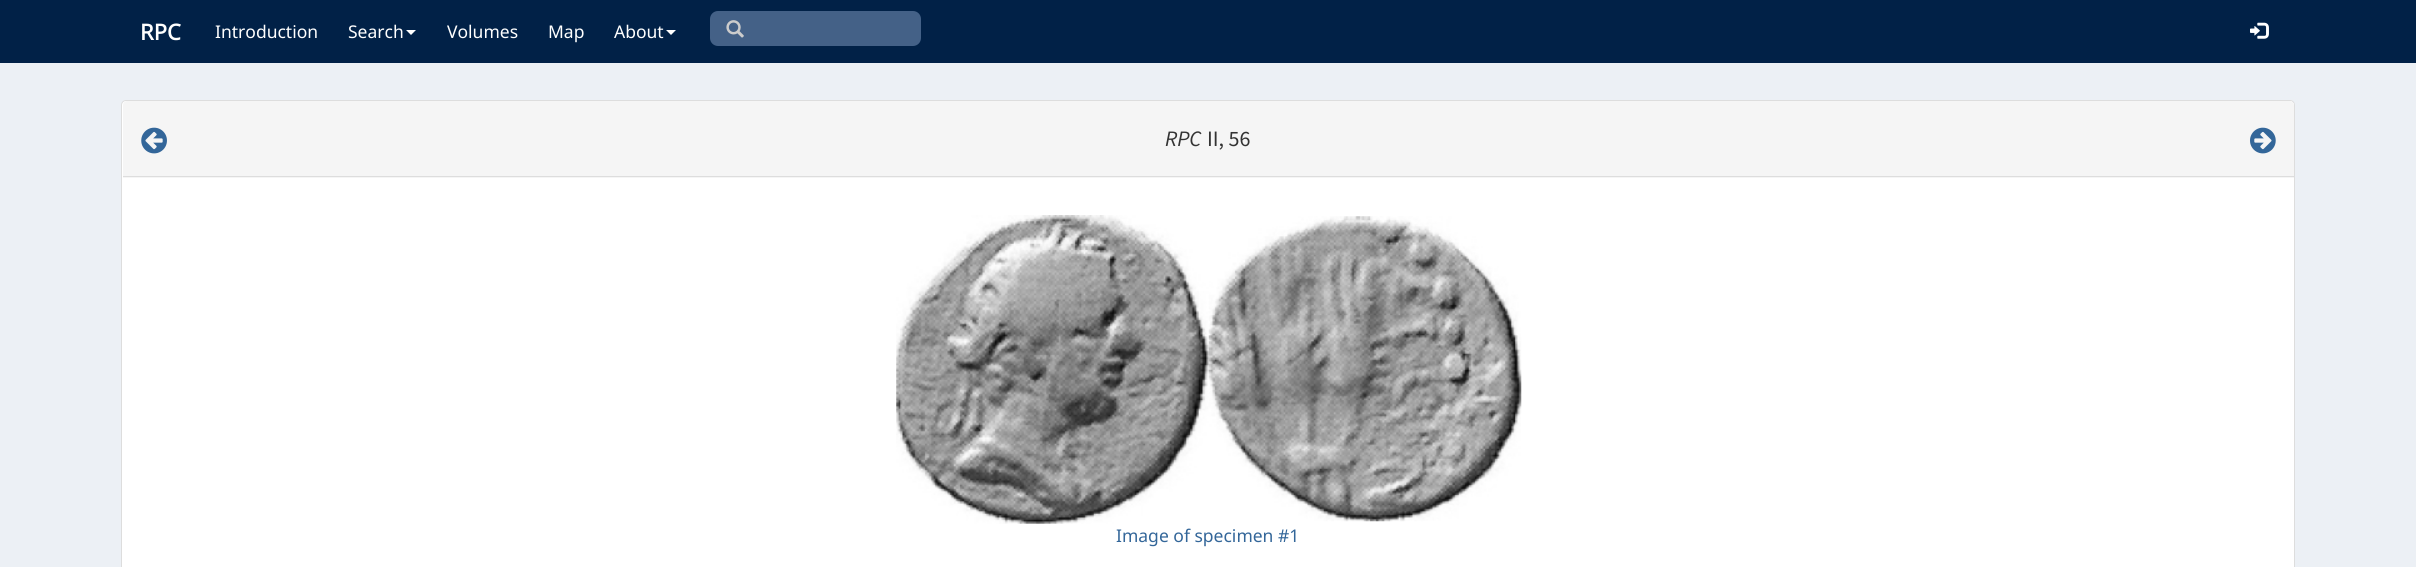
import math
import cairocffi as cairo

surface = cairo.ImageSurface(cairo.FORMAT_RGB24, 2416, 567)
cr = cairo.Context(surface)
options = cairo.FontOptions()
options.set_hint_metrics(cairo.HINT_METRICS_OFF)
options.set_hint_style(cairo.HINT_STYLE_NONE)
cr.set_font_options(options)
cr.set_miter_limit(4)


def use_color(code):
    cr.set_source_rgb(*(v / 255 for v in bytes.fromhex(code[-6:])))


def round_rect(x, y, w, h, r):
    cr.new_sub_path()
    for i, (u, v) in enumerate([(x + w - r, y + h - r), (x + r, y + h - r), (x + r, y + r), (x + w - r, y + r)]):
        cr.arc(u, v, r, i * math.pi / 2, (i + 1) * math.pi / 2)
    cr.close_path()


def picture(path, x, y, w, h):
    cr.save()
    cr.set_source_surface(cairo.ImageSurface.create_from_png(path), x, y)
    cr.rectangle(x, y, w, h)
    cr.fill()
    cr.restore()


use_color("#ecf0f5")
cr.paint()
use_color("#012147")
cr.rectangle(0, 0, 2416, 63)
cr.fill()
cr.select_font_face("Noto Sans", cairo.FONT_SLANT_NORMAL, cairo.FONT_WEIGHT_BOLD)
cr.set_font_size(22)
use_color("#ffffff")
cr.move_to(140, 40)
cr.show_text("RPC")
cr.select_font_face("Noto Sans")
cr.set_font_size(17.5)
cr.move_to(215, 38)
cr.show_text("Introduction")
cr.move_to(348, 38)
cr.show_text("Search")
cr.new_path()
cr.move_to(406, 30)
cr.line_to(416, 30)
cr.line_to(411, 35)
cr.close_path()
cr.fill()
cr.move_to(447, 38)
cr.show_text("Volumes")
cr.move_to(548, 38)
cr.show_text("Map")
cr.move_to(614, 38)
cr.show_text("About")
cr.new_path()
cr.move_to(666, 30)
cr.line_to(676, 30)
cr.line_to(671, 35)
cr.close_path()
cr.fill()
use_color("#446187")
round_rect(710, 11, 211, 35, 8)
cr.fill()
picture("img1.png", 726, 20, 18, 18)
picture("img2.png", 2250, 22, 19, 17)
use_color("#ffffff")
round_rect(121.5, 100.5, 2173, 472, 4.5)
cr.fill_preserve()
use_color("#dddddd")
cr.set_line_width(1)
cr.stroke()
use_color("#f5f5f5")
cr.new_path()
cr.move_to(127, 101)
cr.line_to(2290, 101)
cr.curve_to(2292, 101, 2294, 103, 2294, 105)
cr.line_to(2294, 178)
cr.line_to(123, 178)
cr.line_to(123, 105)
cr.curve_to(123, 103, 125, 101, 127, 101)
cr.close_path()
cr.fill()
use_color("#dddddd")
cr.rectangle(123, 176, 2171, 1)
cr.fill()
picture("img3.png", 141, 127, 26, 27)
cr.select_font_face("Source Sans Pro", cairo.FONT_SLANT_ITALIC)
cr.set_font_size(22)
use_color("#333333")
cr.move_to(1165, 146)
cr.show_text("RPC")
cr.select_font_face("Source Sans Pro")
cr.move_to(1207, 146)
cr.show_text("II, 56")
picture("img4.png", 2250, 127, 26, 27)
picture("img5.png", 896, 215, 313, 309)
picture("img6.png", 1208, 216, 314, 306)
cr.select_font_face("Noto Sans")
cr.set_font_size(17.5)
use_color("#336699")
cr.move_to(1116, 542)
cr.show_text("Image of specimen #1")
surface.write_to_png("result.png")
